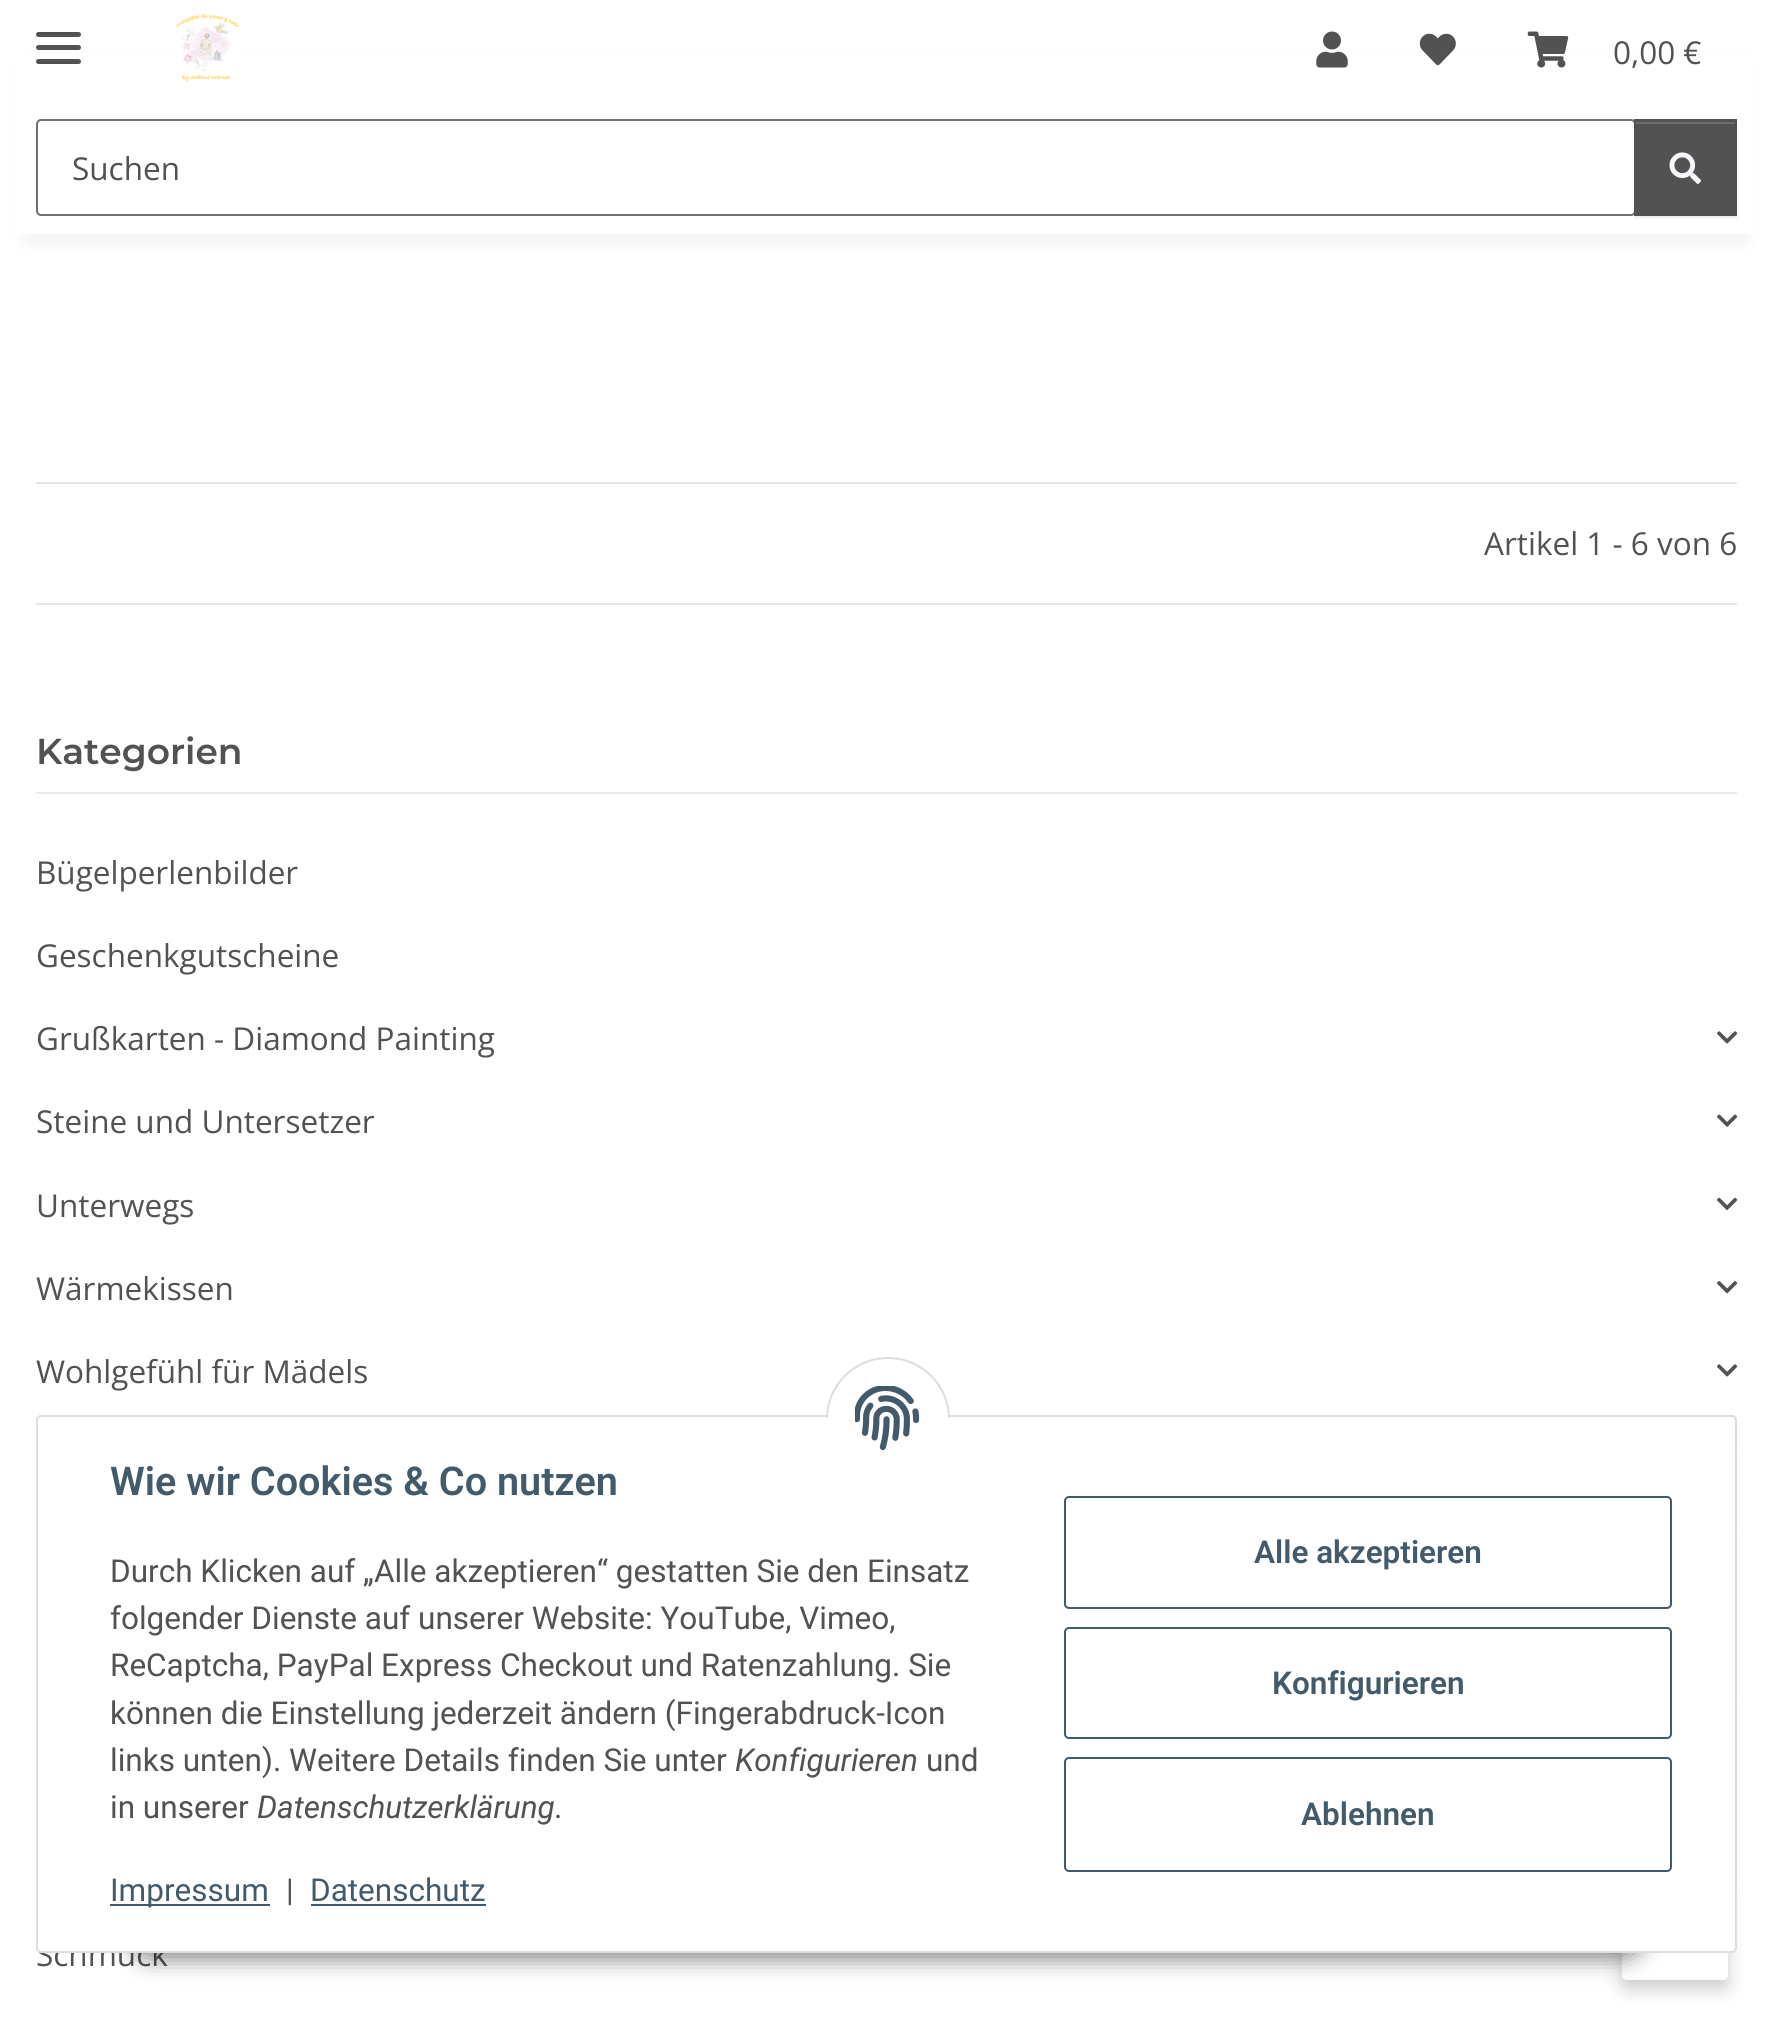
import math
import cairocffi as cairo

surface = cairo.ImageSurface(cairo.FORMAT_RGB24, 1771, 2024)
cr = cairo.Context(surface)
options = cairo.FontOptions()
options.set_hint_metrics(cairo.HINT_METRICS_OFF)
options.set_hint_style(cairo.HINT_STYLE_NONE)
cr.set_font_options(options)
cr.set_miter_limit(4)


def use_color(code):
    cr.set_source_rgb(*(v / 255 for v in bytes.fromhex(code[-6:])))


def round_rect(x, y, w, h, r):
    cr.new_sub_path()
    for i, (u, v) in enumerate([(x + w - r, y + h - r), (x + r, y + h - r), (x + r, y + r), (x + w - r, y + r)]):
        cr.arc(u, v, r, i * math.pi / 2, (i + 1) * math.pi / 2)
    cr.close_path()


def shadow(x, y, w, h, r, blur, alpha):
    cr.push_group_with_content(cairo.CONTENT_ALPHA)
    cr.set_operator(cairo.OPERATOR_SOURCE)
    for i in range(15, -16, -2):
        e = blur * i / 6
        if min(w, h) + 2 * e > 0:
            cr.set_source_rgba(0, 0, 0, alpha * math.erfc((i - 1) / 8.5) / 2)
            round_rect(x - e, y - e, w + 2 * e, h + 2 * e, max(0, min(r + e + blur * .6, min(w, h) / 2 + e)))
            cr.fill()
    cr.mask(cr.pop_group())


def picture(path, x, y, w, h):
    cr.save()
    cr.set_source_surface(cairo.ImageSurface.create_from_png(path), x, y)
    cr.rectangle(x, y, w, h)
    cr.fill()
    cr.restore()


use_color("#ffffff")
cr.paint()
use_color("#000000")
shadow(27, 63, 1719, 180, 0, 10, 0.06)
use_color("#ffffff")
cr.rectangle(17, 53, 1739, 181)
cr.fill()
use_color("#525252")
round_rect(36, 45, 45, 5, 2.5)
cr.fill()
round_rect(36, 32, 45, 5, 2.5)
cr.fill()
round_rect(36, 59, 45, 5, 2.5)
cr.fill()
picture("img1.png", 175, 14, 64, 68)
picture("img2.png", 1316, 31, 32, 37)
picture("img3.png", 1419, 33, 37, 33)
picture("img4.png", 1527, 31, 42, 37)
cr.select_font_face("Open Sans")
cr.set_font_size(31.5)
cr.move_to(1613, 64)
cr.show_text("0,00 €")
round_rect(37, 120, 1598, 95, 4)
use_color("#707070")
cr.stroke()
use_color("#525252")
cr.move_to(72, 180)
cr.show_text("Suchen")
use_color("#000000")
shadow(1634, 122, 103, 96, 0, 1, 0.07)
use_color("#525252")
cr.rectangle(1634, 119, 103, 97)
cr.fill()
use_color("#6c6c6c")
cr.rectangle(1636, 122, 99, 2)
cr.fill()
picture("img5.png", 1669, 152, 32, 32)
use_color("#e6e6e6")
cr.rectangle(36, 482, 1701, 2)
cr.fill()
use_color("#525252")
cr.move_to(1484, 555)
cr.show_text("Artikel 1 - 6 von 6")
use_color("#e6e6e6")
cr.rectangle(36, 603, 1701, 2)
cr.fill()
use_color("#ebebeb")
cr.rectangle(36, 792, 1701, 2)
cr.fill()
cr.select_font_face("Montserrat SemiBold")
cr.set_font_size(36)
use_color("#525252")
cr.move_to(36, 764)
cr.show_text("Kategorien")
cr.select_font_face("Open Sans")
cr.set_font_size(31.5)
cr.move_to(36, 884)
cr.show_text("Bügelperlenbilder")
cr.move_to(36, 967)
cr.show_text("Geschenkgutscheine")
cr.move_to(36, 1050)
cr.show_text("Grußkarten - Diamond Painting")
picture("img6.png", 1717, 1031, 21, 13)
cr.move_to(36, 1133)
cr.show_text("Steine und Untersetzer")
picture("img7.png", 1717, 1114, 21, 13)
cr.move_to(36, 1217)
cr.show_text("Unterwegs")
picture("img8.png", 1717, 1197, 21, 13)
cr.move_to(36, 1300)
cr.show_text("Wärmekissen")
picture("img9.png", 1717, 1281, 21, 13)
cr.move_to(36, 1383)
cr.show_text("Wohlgefühl für Mädels")
picture("img6.png", 1717, 1364, 21, 13)
picture("img10.png", 1737, 1449, 1, 1)
picture("img11.png", 1737, 1532, 1, 2)
picture("img12.png", 1737, 1699, 1, 1)
cr.move_to(36, 1966)
cr.show_text("Schmuck")
use_color("#000000")
shadow(1622, 1890, 106, 99, 5, 9, 0.2)
use_color("#ffffff")
round_rect(1622, 1881, 106, 99, 5)
cr.fill()
use_color("#000000")
shadow(124, 1888, 1525, 72, 36, 11, 0.45)
use_color("#ffffff")
round_rect(37, 1416, 1699, 536, 4)
cr.fill_preserve()
use_color("#dddddd")
cr.stroke()
use_color("#ffffff")
cr.arc(888, 1419, 61, 0, 2 * math.pi)
cr.fill_preserve()
use_color("#dddddd")
cr.stroke()
use_color("#ffffff")
cr.rectangle(826, 1418, 124, 63)
cr.fill()
picture("img13.png", 855, 1386, 65, 65)
cr.select_font_face("Roboto SemiBold")
cr.set_font_size(39.6)
use_color("#435a6b")
cr.move_to(110, 1495)
cr.show_text("Wie wir Cookies & Co nutzen")
cr.select_font_face("Roboto")
cr.set_font_size(31.5)
use_color("#525252")
cr.move_to(110, 1582)
cr.show_text("Durch Klicken auf „Alle akzeptieren“ gestatten Sie den Einsatz")
cr.move_to(110, 1629)
cr.show_text("folgender Dienste auf unserer Website: YouTube, Vimeo,")
cr.move_to(110, 1676)
cr.show_text("ReCaptcha, PayPal Express Checkout und Ratenzahlung. Sie")
cr.move_to(110, 1724)
cr.show_text("können die Einstellung jederzeit ändern (Fingerabdruck-Icon")
cr.move_to(110, 1771)
cr.show_text("links unten). Weitere Details finden Sie unter")
cr.select_font_face("Roboto", cairo.FONT_SLANT_ITALIC)
cr.move_to(735, 1771)
cr.show_text("Konfigurieren")
cr.select_font_face("Roboto")
cr.move_to(926, 1771)
cr.show_text("und")
cr.move_to(110, 1818)
cr.show_text("in unserer")
cr.select_font_face("Roboto", cairo.FONT_SLANT_ITALIC)
cr.move_to(257, 1818)
cr.show_text("Datenschutzerklärung")
cr.select_font_face("Roboto")
cr.move_to(554, 1818)
cr.show_text(".")
use_color("#435a6b")
cr.rectangle(110, 1904, 160, 2)
cr.fill()
cr.move_to(110, 1901)
cr.show_text("Impressum")
use_color("#525252")
cr.move_to(286, 1901)
cr.show_text("|")
use_color("#435a6b")
cr.move_to(310, 1901)
cr.show_text("Datenschutz")
cr.rectangle(311, 1904, 175, 2)
cr.fill()
round_rect(1065, 1497, 606, 111, 4)
cr.stroke()
cr.select_font_face("Roboto SemiBold")
cr.move_to(1254, 1563)
cr.show_text("Alle akzeptieren")
round_rect(1065, 1628, 606, 110, 4)
cr.stroke()
cr.move_to(1272, 1694)
cr.show_text("Konfigurieren")
round_rect(1065, 1758, 606, 113, 4)
cr.stroke()
cr.move_to(1301, 1825)
cr.show_text("Ablehnen")
surface.write_to_png("result.png")
